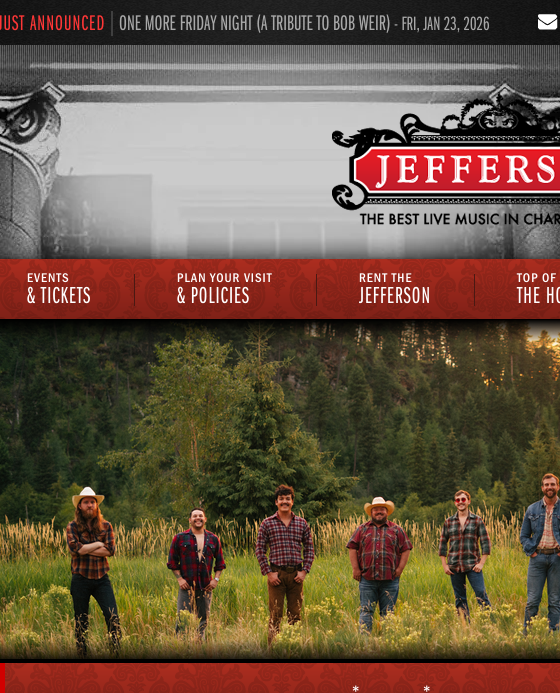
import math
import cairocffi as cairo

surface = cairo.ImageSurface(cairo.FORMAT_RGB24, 560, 693)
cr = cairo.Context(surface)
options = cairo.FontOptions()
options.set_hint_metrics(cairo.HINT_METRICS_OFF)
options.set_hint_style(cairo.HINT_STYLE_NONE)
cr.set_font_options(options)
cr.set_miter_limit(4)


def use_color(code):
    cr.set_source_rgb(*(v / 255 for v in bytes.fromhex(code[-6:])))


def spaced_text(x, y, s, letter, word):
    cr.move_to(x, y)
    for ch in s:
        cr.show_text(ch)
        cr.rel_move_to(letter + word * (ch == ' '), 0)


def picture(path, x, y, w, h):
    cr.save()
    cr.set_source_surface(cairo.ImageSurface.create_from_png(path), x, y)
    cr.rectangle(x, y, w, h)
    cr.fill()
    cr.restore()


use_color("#ffffff")
cr.paint()
picture("img1.png", 0, 45, 560, 214)
picture("img2.png", 0, 0, 560, 45)
cr.select_font_face("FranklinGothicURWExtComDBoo")
cr.set_font_size(22)
use_color("#fe3636")
spaced_text(-2, 30, "JUST ANNOUNCED", 1, 0)
use_color("#3f3f3f")
cr.rectangle(111, 11, 2, 25)
cr.fill()
use_color("#a8a8a8")
cr.move_to(119, 30)
cr.show_text("ONE MORE FRIDAY NIGHT (A TRIBUTE TO BOB WEIR)")
cr.set_font_size(20)
cr.move_to(394, 30)
cr.show_text("- FRI, JAN 23, 2026")
picture("img3.png", 538, 14, 20, 16)
picture("img4.png", 332, 92, 228, 133)
picture("img5.png", 0, 259, 560, 60)
cr.select_font_face("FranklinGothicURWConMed")
cr.set_font_size(13)
use_color("#ffffff")
spaced_text(27, 282, "EVENTS", 1, 0)
cr.select_font_face("FranklinGothicURWExtComDBoo")
cr.set_font_size(24)
spaced_text(27, 303, "& TICKETS", 1, 0)
use_color("#4a1913")
cr.rectangle(134, 274, 1, 32)
cr.fill()
cr.select_font_face("FranklinGothicURWConMed")
cr.set_font_size(13)
use_color("#ffffff")
spaced_text(177, 282, "PLAN YOUR VISIT", 1, 0)
cr.select_font_face("FranklinGothicURWExtComDBoo")
cr.set_font_size(24)
spaced_text(177, 303, "& POLICIES", 1, 0)
use_color("#4a1913")
cr.rectangle(316, 274, 1, 32)
cr.fill()
cr.select_font_face("FranklinGothicURWConMed")
cr.set_font_size(13)
use_color("#ffffff")
spaced_text(359, 282, "RENT THE", 1, 0)
cr.select_font_face("FranklinGothicURWExtComDBoo")
cr.set_font_size(24)
spaced_text(359, 303, "JEFFERSON", 1, 0)
use_color("#4a1913")
cr.rectangle(474, 274, 1, 32)
cr.fill()
cr.select_font_face("FranklinGothicURWConMed")
cr.set_font_size(13)
use_color("#ffffff")
spaced_text(517, 282, "TOP OF", 1, 0)
cr.select_font_face("FranklinGothicURWExtComDBoo")
cr.set_font_size(24)
spaced_text(517, 303, "THE HO", 1, 0)
use_color("#000000")
cr.rectangle(0, 659, 560, 4)
cr.fill()
picture("img7.png", 0, 320, 560, 339)
picture("img6.png", 0, 319, 560, 24)
picture("img8.png", 0, 640, 560, 19)
picture("img9.png", 5, 663, 555, 30)
use_color("#d10000")
cr.rectangle(0, 663, 5, 30)
cr.fill()
cr.set_font_size(23)
use_color("#ffffff")
spaced_text(352, 701, "*", 1, 0)
spaced_text(423, 701, "*", 1, 0)
surface.write_to_png("result.png")
